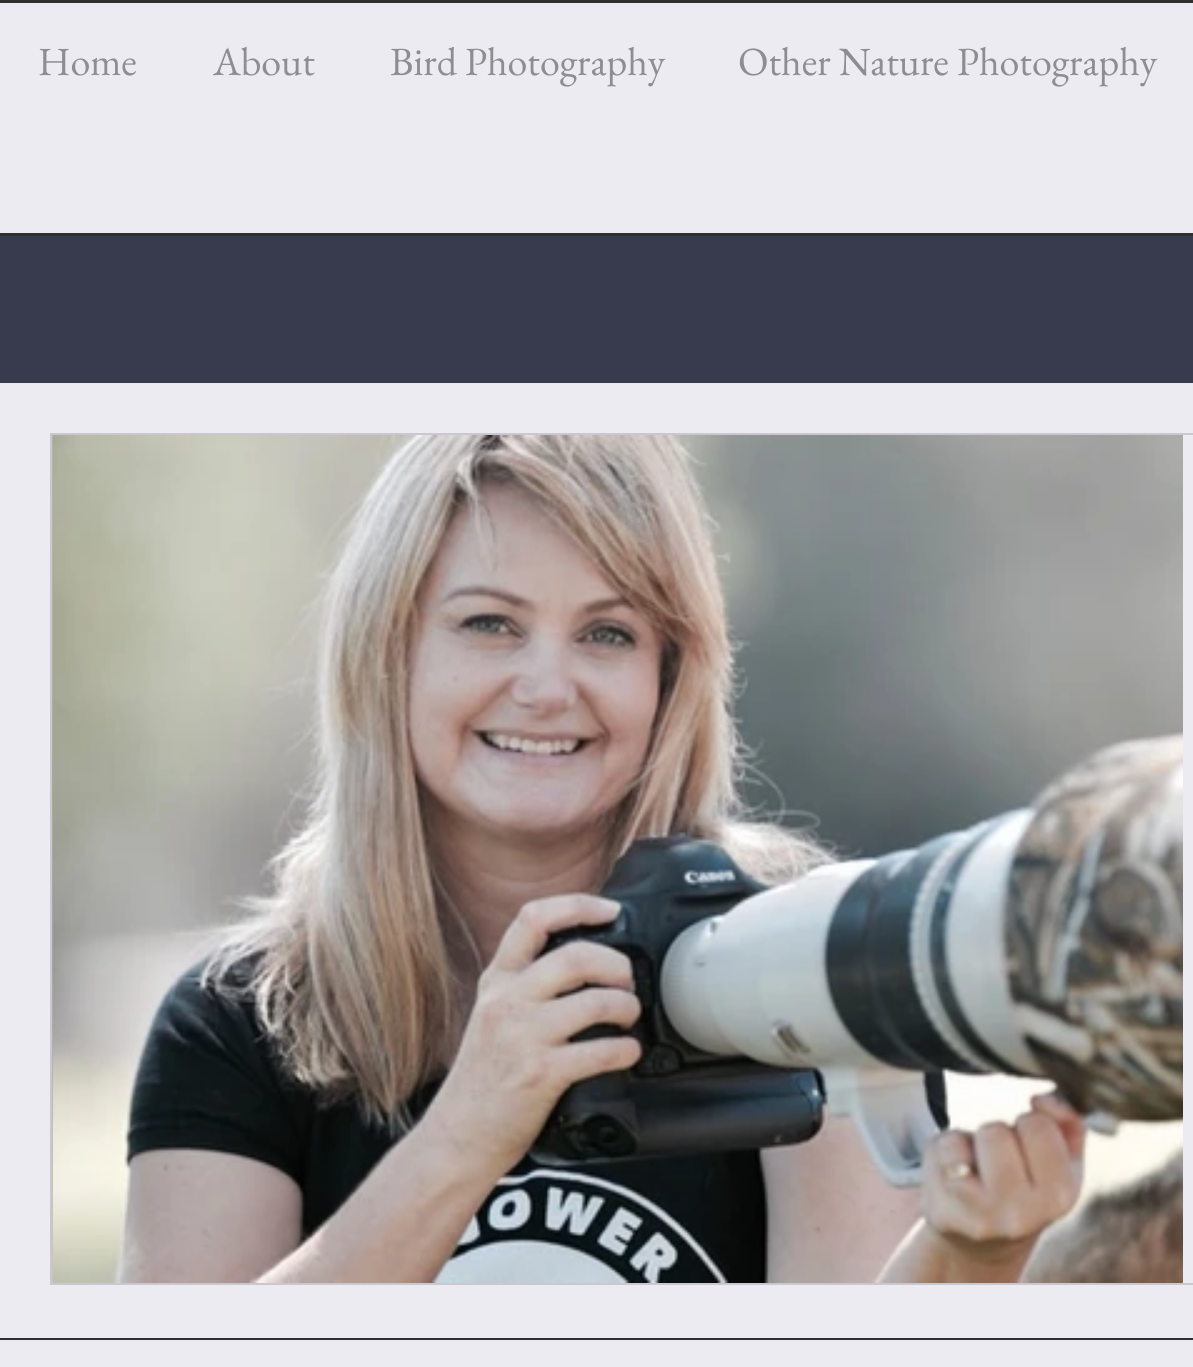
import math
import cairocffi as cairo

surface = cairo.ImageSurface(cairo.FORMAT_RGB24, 1193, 1367)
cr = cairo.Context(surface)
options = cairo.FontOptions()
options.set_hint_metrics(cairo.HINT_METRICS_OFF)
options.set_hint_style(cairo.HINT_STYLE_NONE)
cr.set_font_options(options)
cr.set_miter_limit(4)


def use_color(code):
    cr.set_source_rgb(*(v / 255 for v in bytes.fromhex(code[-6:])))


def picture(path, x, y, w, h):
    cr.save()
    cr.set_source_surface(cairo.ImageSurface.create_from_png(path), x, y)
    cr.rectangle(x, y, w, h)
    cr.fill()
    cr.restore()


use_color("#373b4d")
cr.paint()
use_color("#2f2f30")
cr.rectangle(0, 0, 1193, 3)
cr.fill()
cr.rectangle(0, 233, 1193, 3)
cr.fill()
use_color("#edebf2")
cr.rectangle(0, 3, 1193, 230)
cr.fill()
cr.select_font_face("EB Garamond")
cr.set_font_size(40)
use_color("#8e8d91")
cr.move_to(38, 75)
cr.show_text("Home")
cr.move_to(213, 75)
cr.show_text("About")
cr.move_to(390, 75)
cr.show_text("Bird Photography")
cr.move_to(738, 75)
cr.show_text("Other Nature Photography")
use_color("#edebf2")
cr.rectangle(0, 383, 1193, 955)
cr.fill()
cr.rectangle(51.5, 434.5, 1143, 849)
use_color("#cac8ce")
cr.set_line_width(3)
cr.stroke()
picture("img1.png", 52, 435, 1, 848)
picture("img2.png", 53, 435, 1130, 848)
use_color("#edebf2")
cr.rectangle(1183, 435, 10, 848)
cr.fill()
use_color("#2f2f30")
cr.rectangle(0, 1338, 1193, 2)
cr.fill()
use_color("#edebf2")
cr.rectangle(0, 1340, 1193, 27)
cr.fill()
surface.write_to_png("result.png")
